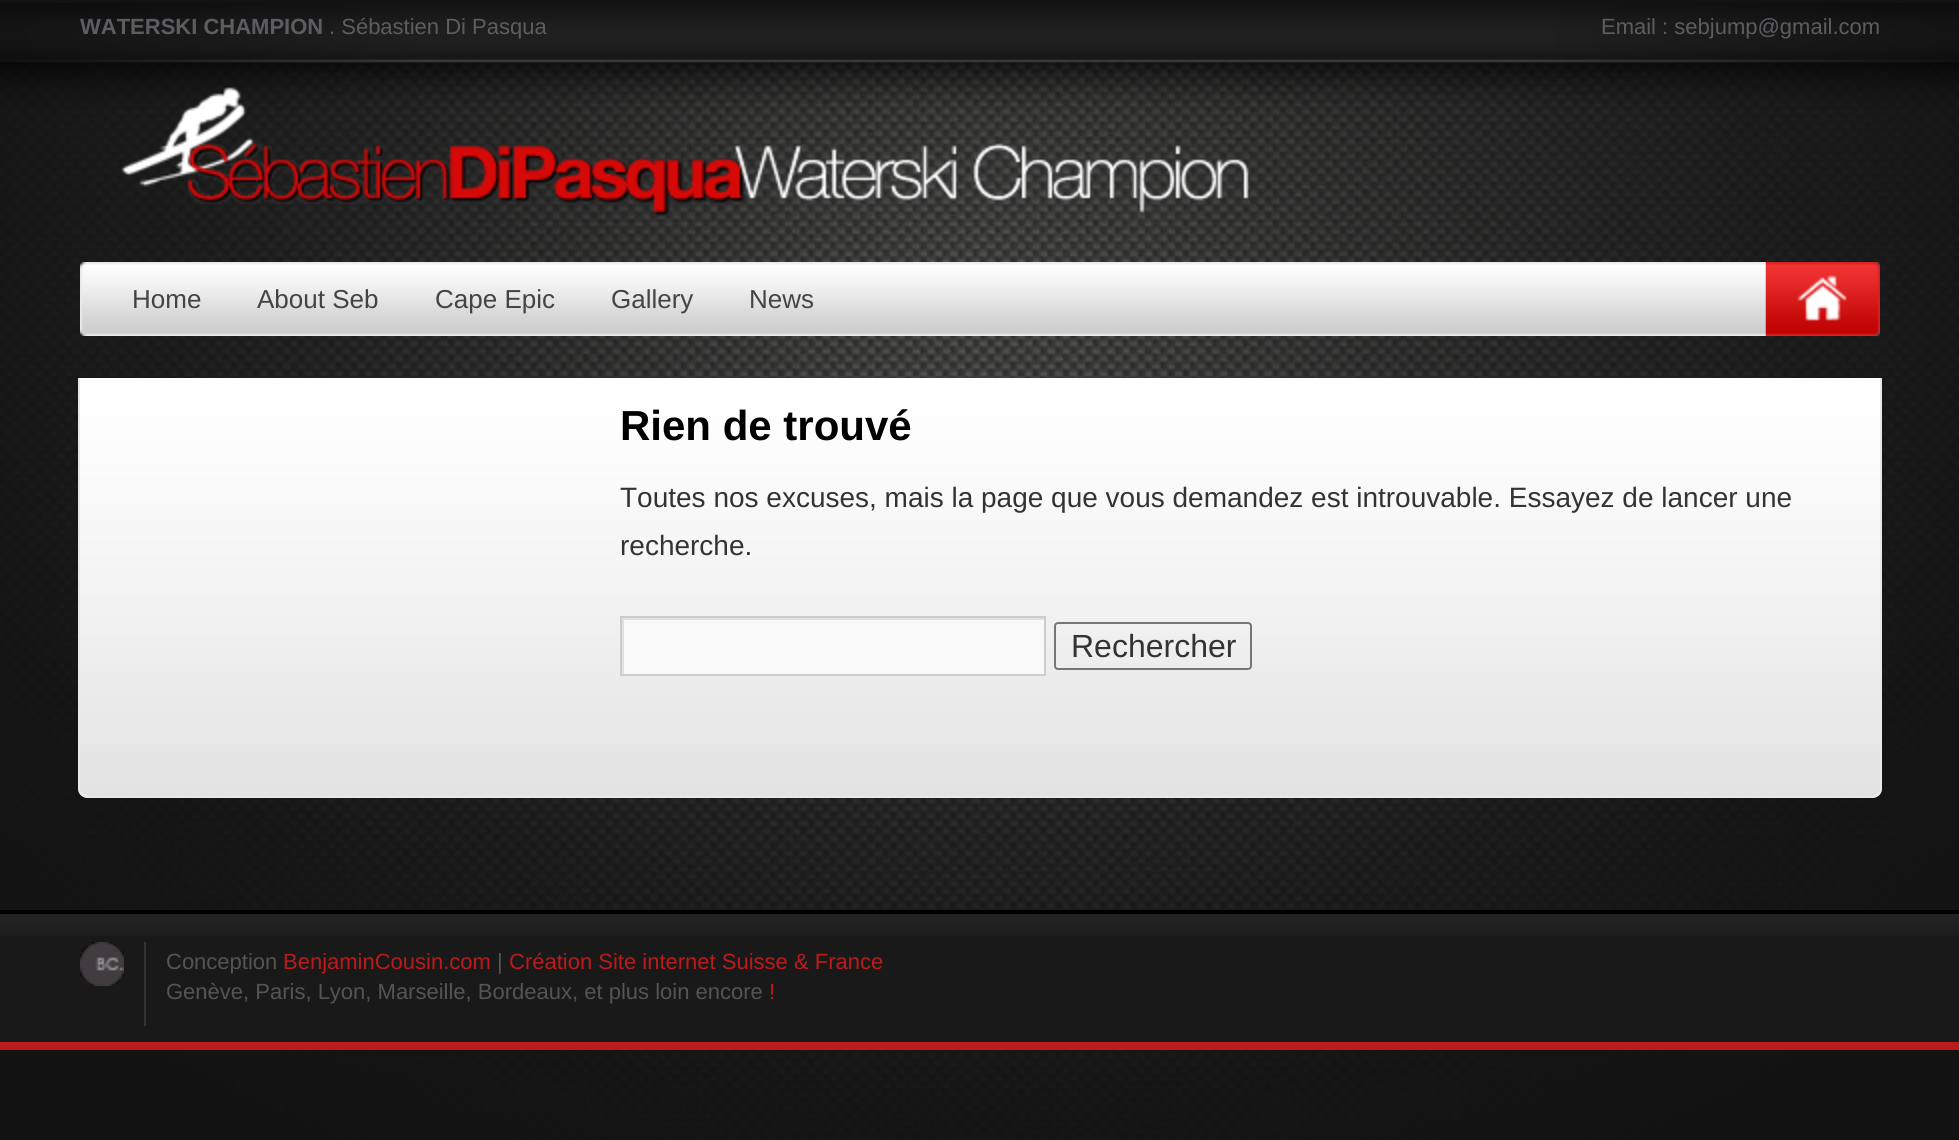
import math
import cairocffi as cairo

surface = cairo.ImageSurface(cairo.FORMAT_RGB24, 1959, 1140)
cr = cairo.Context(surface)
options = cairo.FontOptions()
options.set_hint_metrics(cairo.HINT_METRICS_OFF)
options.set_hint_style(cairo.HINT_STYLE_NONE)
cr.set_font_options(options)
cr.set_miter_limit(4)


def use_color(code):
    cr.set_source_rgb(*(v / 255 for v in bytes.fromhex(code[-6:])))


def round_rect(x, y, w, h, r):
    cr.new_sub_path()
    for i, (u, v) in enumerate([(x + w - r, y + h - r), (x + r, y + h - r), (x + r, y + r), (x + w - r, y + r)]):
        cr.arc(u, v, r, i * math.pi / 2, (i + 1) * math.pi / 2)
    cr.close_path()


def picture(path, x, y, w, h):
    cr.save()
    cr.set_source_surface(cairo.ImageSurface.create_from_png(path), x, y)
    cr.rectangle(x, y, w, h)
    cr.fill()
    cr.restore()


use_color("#121212")
cr.paint()
picture("img1.png", 0, 3, 1959, 1137)
cr.select_font_face("Liberation Sans", cairo.FONT_SLANT_NORMAL, cairo.FONT_WEIGHT_BOLD)
cr.set_font_size(22)
use_color("#5c5d61")
cr.move_to(80, 34)
cr.show_text("WATERSKI CHAMPION")
cr.select_font_face("Liberation Sans")
cr.move_to(329, 34)
cr.show_text(". Sébastien Di Pasqua")
cr.move_to(1601, 34)
cr.show_text("Email : sebjump@gmail.com")
picture("img2.png", 121, 87, 1128, 130)
picture("img3.png", 80, 262, 1686, 74)
cr.set_font_size(26)
use_color("#444444")
cr.move_to(132, 308)
cr.show_text("Home")
cr.move_to(257, 308)
cr.show_text("About Seb")
cr.move_to(435, 308)
cr.show_text("Cape Epic")
cr.move_to(611, 308)
cr.show_text("Gallery")
cr.move_to(749, 308)
cr.show_text("News")
picture("img4.png", 1766, 262, 114, 74)
picture("img5.png", 78, 378, 1804, 420)
use_color("#e9e9e9")
cr.set_fill_rule(cairo.FILL_RULE_EVEN_ODD)
cr.new_path()
cr.move_to(78, 378)
cr.line_to(1882, 378)
cr.line_to(1882, 788)
cr.curve_to(1882, 794, 1878, 798, 1872, 798)
cr.line_to(88, 798)
cr.curve_to(82, 798, 78, 794, 78, 788)
cr.close_path()
cr.move_to(80, 378)
cr.line_to(1880, 378)
cr.line_to(1880, 788)
cr.curve_to(1880, 792, 1876, 796, 1872, 796)
cr.line_to(88, 796)
cr.curve_to(84, 796, 80, 792, 80, 788)
cr.close_path()
cr.fill()
cr.select_font_face("Liberation Sans", cairo.FONT_SLANT_NORMAL, cairo.FONT_WEIGHT_BOLD)
cr.set_font_size(42)
use_color("#000000")
cr.move_to(620, 440)
cr.show_text("Rien de trouvé")
cr.select_font_face("Liberation Sans")
cr.set_font_size(28)
use_color("#333333")
cr.move_to(620, 507)
cr.show_text("Toutes nos excuses, mais la page que vous demandez est introuvable. Essayez de lancer une")
cr.move_to(620, 555)
cr.show_text("recherche.")
use_color("#f9f9f9")
cr.rectangle(624, 620, 420, 54)
cr.fill()
cr.save()
cr.set_fill_rule(cairo.FILL_RULE_WINDING)
cr.rectangle(622, 618, 422, 56)
cr.clip()
use_color("#e0e0e0")
cr.set_fill_rule(cairo.FILL_RULE_EVEN_ODD)
cr.new_path()
cr.move_to(424, 420)
cr.line_to(1242, 420)
cr.line_to(1242, 796)
cr.line_to(424, 796)
cr.close_path()
cr.move_to(624, 620)
cr.line_to(624, 676)
cr.line_to(1046, 676)
cr.line_to(1046, 620)
cr.close_path()
cr.fill()
cr.restore()
cr.rectangle(621, 617, 424, 58)
use_color("#cccccc")
cr.stroke()
round_rect(1055, 623, 196, 46, 3)
use_color("#767676")
cr.stroke()
cr.set_font_size(32)
use_color("#333333")
cr.move_to(1071, 657)
cr.show_text("Rechercher")
use_color("#191919")
cr.rectangle(0, 936, 1959, 106)
cr.fill()
picture("img6.png", 0, 914, 1959, 22)
use_color("#000000")
cr.rectangle(0, 910, 1959, 4)
cr.fill()
use_color("#bb1b1b")
cr.rectangle(0, 1042, 1959, 8)
cr.fill()
picture("img7.png", 80, 942, 44, 44)
use_color("#333333")
cr.rectangle(144, 942, 2, 84)
cr.fill()
cr.set_font_size(22)
use_color("#545454")
cr.move_to(166, 969)
cr.show_text("Conception")
use_color("#bb1b1b")
cr.move_to(283, 969)
cr.show_text("BenjaminCousin.com")
use_color("#545454")
cr.move_to(497, 969)
cr.show_text("|")
use_color("#bb1b1b")
cr.move_to(509, 969)
cr.show_text("Création Site internet Suisse & France")
use_color("#545454")
cr.move_to(166, 999)
cr.show_text("Genève, Paris, Lyon, Marseille, Bordeaux, et plus loin encore")
use_color("#bb1b1b")
cr.move_to(769, 999)
cr.show_text("!")
surface.write_to_png("result.png")
